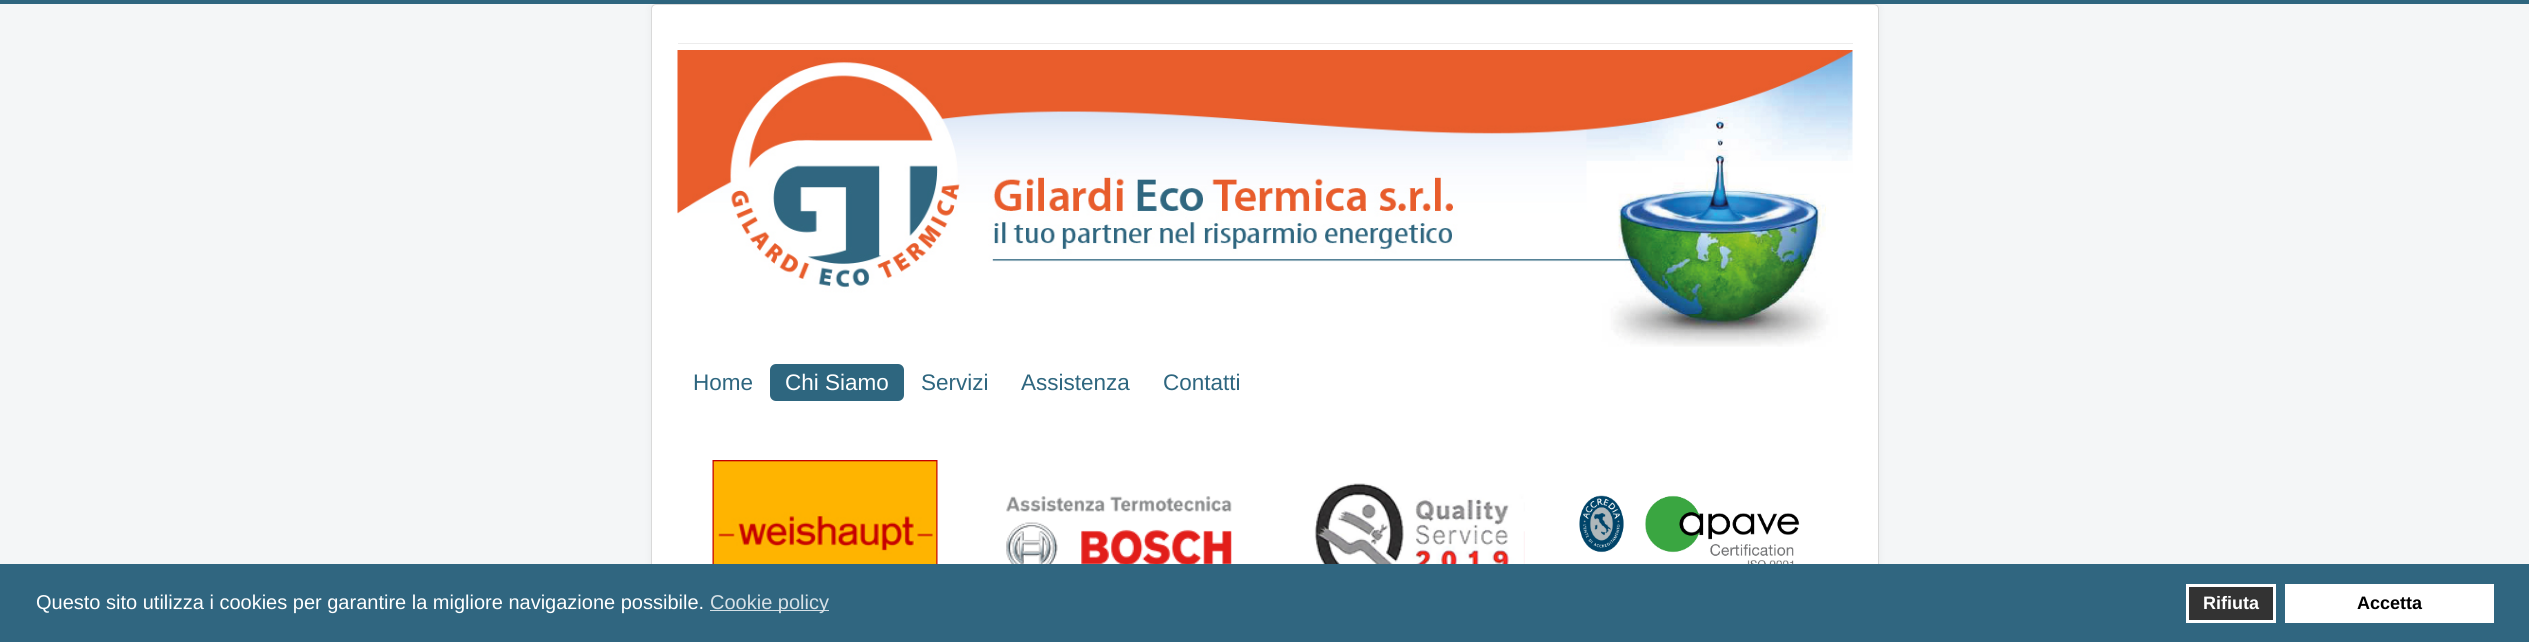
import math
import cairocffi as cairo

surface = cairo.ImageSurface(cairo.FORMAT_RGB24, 2529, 642)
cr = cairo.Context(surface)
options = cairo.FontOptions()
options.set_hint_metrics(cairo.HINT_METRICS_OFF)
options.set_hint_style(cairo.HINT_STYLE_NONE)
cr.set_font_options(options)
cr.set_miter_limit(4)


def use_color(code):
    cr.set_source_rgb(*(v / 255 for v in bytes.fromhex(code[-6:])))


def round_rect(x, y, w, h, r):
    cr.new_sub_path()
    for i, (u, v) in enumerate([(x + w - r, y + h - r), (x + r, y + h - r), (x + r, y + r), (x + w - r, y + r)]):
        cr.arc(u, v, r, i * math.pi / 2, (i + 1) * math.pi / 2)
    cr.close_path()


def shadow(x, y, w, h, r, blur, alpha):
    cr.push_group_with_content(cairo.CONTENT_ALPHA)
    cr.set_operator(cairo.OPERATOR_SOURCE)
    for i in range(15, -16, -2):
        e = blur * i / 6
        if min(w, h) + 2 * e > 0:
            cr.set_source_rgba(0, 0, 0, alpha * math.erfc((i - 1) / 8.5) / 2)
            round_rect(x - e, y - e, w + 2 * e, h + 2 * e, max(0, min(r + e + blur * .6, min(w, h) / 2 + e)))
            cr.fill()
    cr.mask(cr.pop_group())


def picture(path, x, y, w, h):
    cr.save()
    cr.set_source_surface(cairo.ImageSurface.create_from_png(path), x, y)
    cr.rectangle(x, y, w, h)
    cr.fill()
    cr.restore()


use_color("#f4f6f7")
cr.paint()
use_color("#2e667f")
cr.rectangle(0, 0, 2529, 4)
cr.fill()
use_color("#000000")
shadow(651, 4, 1228, 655, 5, 4, 0.05)
use_color("#ffffff")
round_rect(651, 4, 1228, 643, 5)
cr.fill()
round_rect(651.5, 4.5, 1227, 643, 4.5)
cr.set_source_rgba(0, 0, 0, 0.15)
cr.set_line_width(1)
cr.stroke()
use_color("#ececec")
cr.rectangle(678, 43, 1175, 1)
cr.fill()
picture("img1.png", 677, 50, 1176, 297)
cr.select_font_face("Liberation Sans")
cr.set_font_size(22.5)
use_color("#2e667f")
cr.move_to(693, 390)
cr.show_text("Home")
round_rect(770, 364, 134, 37, 6)
cr.fill()
use_color("#ffffff")
cr.move_to(785, 390)
cr.show_text("Chi Siamo")
use_color("#2e667f")
cr.move_to(921, 390)
cr.show_text("Servizi")
cr.move_to(1021, 390)
cr.show_text("Assistenza")
cr.move_to(1163, 390)
cr.show_text("Contatti")
picture("img2.png", 712, 460, 226, 104)
picture("img3.png", 1006, 496, 226, 68)
picture("img4.png", 1314, 483, 211, 81)
picture("img5.png", 1579, 495, 221, 69)
use_color("#306680")
cr.rectangle(0, 564, 2529, 78)
cr.fill()
cr.set_font_size(20)
use_color("#ffffff")
cr.move_to(36, 609)
cr.show_text("Questo sito utilizza i cookies per garantire la migliore navigazione possibile.")
use_color("#d6e0e6")
cr.rectangle(710, 610, 119, 1)
cr.fill()
cr.move_to(710, 609)
cr.show_text("Cookie policy")
use_color("#333333")
cr.rectangle(2187.5, 585.5, 87, 36)
cr.fill_preserve()
use_color("#ffffff")
cr.set_line_width(3)
cr.stroke()
cr.select_font_face("Liberation Sans", cairo.FONT_SLANT_NORMAL, cairo.FONT_WEIGHT_BOLD)
cr.set_font_size(18)
cr.move_to(2203, 609)
cr.show_text("Rifiuta")
cr.rectangle(2285, 584, 209, 39)
cr.fill()
use_color("#000000")
cr.move_to(2357, 609)
cr.show_text("Accetta")
surface.write_to_png("result.png")
